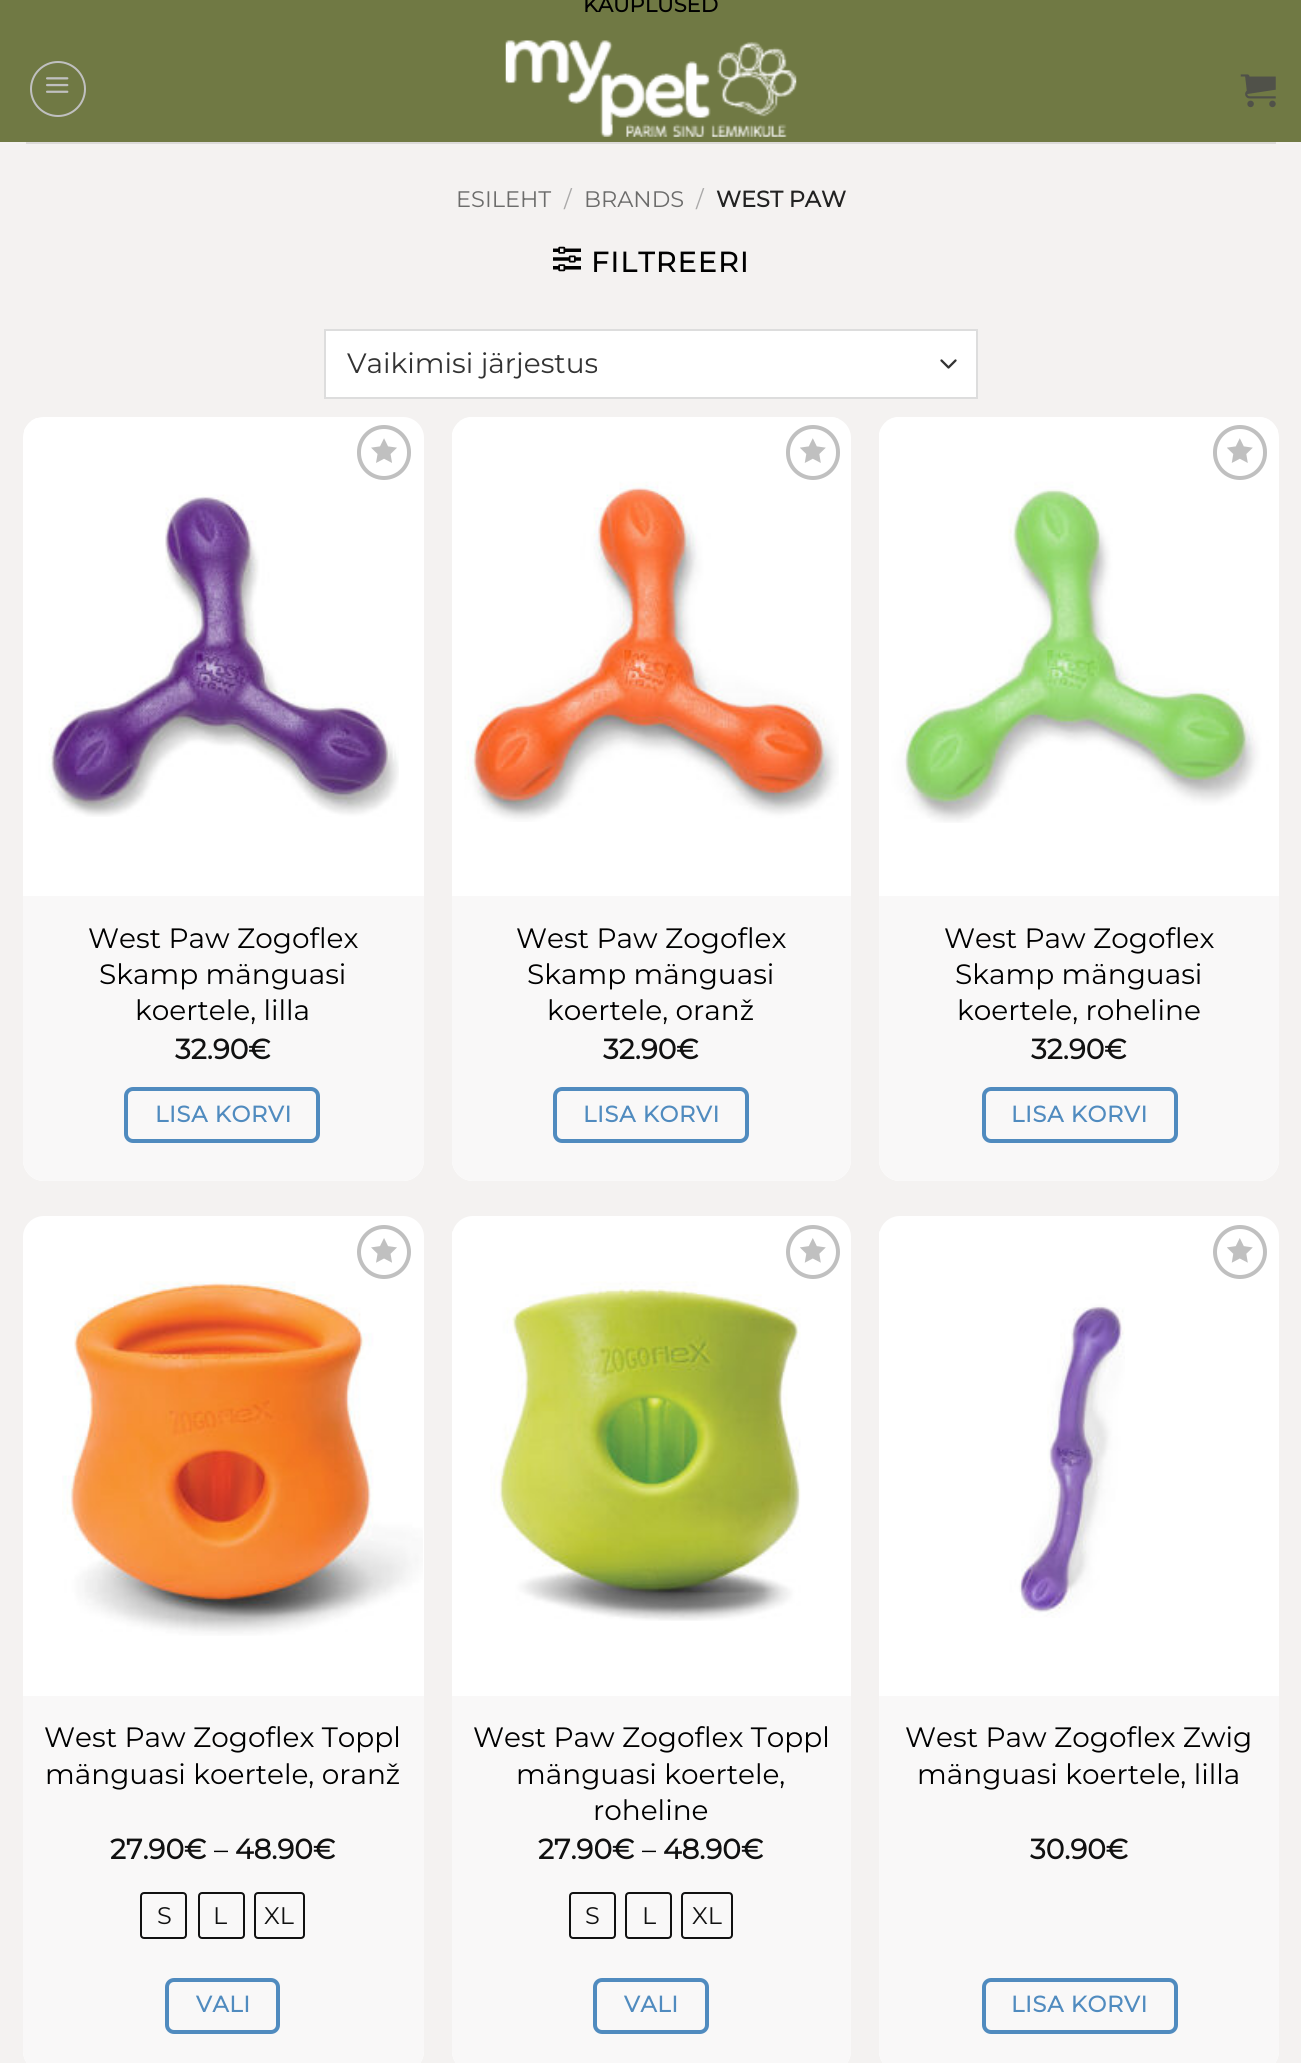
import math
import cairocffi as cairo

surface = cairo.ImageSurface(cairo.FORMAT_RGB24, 1301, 2063)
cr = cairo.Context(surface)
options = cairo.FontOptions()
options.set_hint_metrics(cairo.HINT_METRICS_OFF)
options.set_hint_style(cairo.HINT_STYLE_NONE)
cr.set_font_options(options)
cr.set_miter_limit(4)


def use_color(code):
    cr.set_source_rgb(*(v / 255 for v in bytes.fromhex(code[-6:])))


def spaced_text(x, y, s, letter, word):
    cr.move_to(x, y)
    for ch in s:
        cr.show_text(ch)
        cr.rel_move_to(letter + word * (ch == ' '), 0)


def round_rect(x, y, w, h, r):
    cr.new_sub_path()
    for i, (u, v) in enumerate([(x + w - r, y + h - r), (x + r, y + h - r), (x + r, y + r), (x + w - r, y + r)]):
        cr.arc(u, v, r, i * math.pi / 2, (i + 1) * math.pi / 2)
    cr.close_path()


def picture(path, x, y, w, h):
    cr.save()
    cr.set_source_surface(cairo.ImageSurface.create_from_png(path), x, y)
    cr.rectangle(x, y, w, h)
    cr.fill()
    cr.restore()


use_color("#f4f2f1")
cr.paint()
use_color("#707944")
cr.rectangle(0, 0, 1301, 142)
cr.fill()
cr.select_font_face("Montserrat", cairo.FONT_SLANT_NORMAL, cairo.FONT_WEIGHT_BOLD)
cr.set_font_size(21)
use_color("#000000")
cr.move_to(583, 12)
cr.show_text("KAUPLUSED")
cr.new_path()
cr.arc(58, 89, 27, 0, 2 * math.pi)
use_color("#c0c0c0")
cr.stroke()
picture("img1.png", 46, 77, 23, 16)
picture("img2.png", 505, 40, 292, 97)
picture("img3.png", 1240, 74, 36, 34)
use_color("#dcdad9")
cr.rectangle(26, 142, 1250, 2)
cr.fill()
cr.select_font_face("Montserrat Thin")
cr.set_font_size(22.5)
use_color("#6c6c6b")
cr.move_to(456, 207)
cr.show_text("ESILEHT")
use_color("#aaa9a9")
cr.move_to(564, 207)
cr.show_text("/")
use_color("#6c6c6b")
cr.move_to(584, 207)
cr.show_text("BRANDS")
use_color("#aaa9a9")
cr.move_to(696, 207)
cr.show_text("/")
cr.select_font_face("Montserrat", cairo.FONT_SLANT_NORMAL, cairo.FONT_WEIGHT_BOLD)
use_color("#222222")
cr.move_to(716, 207)
cr.show_text("WEST PAW")
picture("img4.png", 553, 246, 28, 26)
cr.set_font_size(28)
use_color("#000000")
spaced_text(591, 272, "FILTREERI", 1.5, 0)
use_color("#ffffff")
cr.rectangle(326, 331, 650, 66)
cr.fill()
cr.new_path()
cr.move_to(941.5, 360.5)
cr.line_to(948.5, 367.5)
cr.line_to(955.5, 360.5)
use_color("#333333")
cr.set_line_width(2.3)
cr.set_line_cap(cairo.LINE_CAP_ROUND)
cr.set_line_join(cairo.LINE_JOIN_ROUND)
cr.stroke()
cr.rectangle(325, 330, 652, 68)
use_color("#dddddd")
cr.set_line_width(2)
cr.set_line_cap(cairo.LINE_CAP_BUTT)
cr.set_line_join(cairo.LINE_JOIN_MITER)
cr.stroke()
cr.select_font_face("Montserrat Thin")
use_color("#333333")
cr.move_to(347, 373)
cr.show_text("Vaikimisi järjestus")
use_color("#ffffff")
round_rect(23, 417, 401, 764, 21)
cr.fill()
picture("img5.png", 24, 418, 375, 399)
round_rect(359, 427, 50, 51, 25)
use_color("#c0c0c0")
cr.set_line_width(4)
cr.stroke()
picture("img6.png", 371, 438, 26, 25)
use_color("#f9f8f8")
cr.new_path()
cr.move_to(23, 896)
cr.line_to(424, 896)
cr.line_to(424, 1160)
cr.curve_to(424, 1171.5, 414.5, 1181, 403, 1181)
cr.line_to(44, 1181)
cr.curve_to(32.5, 1181, 23, 1171.5, 23, 1160)
cr.close_path()
cr.fill()
use_color("#000000")
cr.move_to(88, 948)
cr.show_text("West Paw Zogoflex")
cr.move_to(99, 984)
cr.show_text("Skamp mänguasi")
cr.move_to(135, 1020)
cr.show_text("koertele, lilla")
cr.select_font_face("Montserrat", cairo.FONT_SLANT_NORMAL, cairo.FONT_WEIGHT_BOLD)
use_color("#111111")
cr.move_to(175, 1059)
cr.show_text("32.90€")
round_rect(126, 1089, 192, 52, 7)
use_color("#508bbf")
cr.stroke()
cr.set_font_size(22.5)
spaced_text(155, 1122, "LISA KORVI", 0.75, 0)
use_color("#ffffff")
round_rect(452, 417, 399, 764, 21)
cr.fill()
picture("img7.png", 452, 417, 387, 405)
round_rect(788, 427, 50, 51, 25)
use_color("#c0c0c0")
cr.stroke()
picture("img8.png", 800, 438, 26, 25)
use_color("#f9f8f8")
cr.new_path()
cr.move_to(452, 896)
cr.line_to(851, 896)
cr.line_to(851, 1160)
cr.curve_to(851, 1171.5, 841.5, 1181, 830, 1181)
cr.line_to(473, 1181)
cr.curve_to(461.5, 1181, 452, 1171.5, 452, 1160)
cr.close_path()
cr.fill()
cr.select_font_face("Montserrat Thin")
cr.set_font_size(28)
use_color("#000000")
cr.move_to(516, 948)
cr.show_text("West Paw Zogoflex")
cr.move_to(527, 984)
cr.show_text("Skamp mänguasi")
cr.move_to(547, 1020)
cr.show_text("koertele, oranž")
cr.select_font_face("Montserrat", cairo.FONT_SLANT_NORMAL, cairo.FONT_WEIGHT_BOLD)
use_color("#111111")
cr.move_to(603, 1059)
cr.show_text("32.90€")
round_rect(555, 1089, 192, 52, 7)
use_color("#508bbf")
cr.stroke()
cr.set_font_size(22.5)
spaced_text(583, 1122, "LISA KORVI", 0.75, 0)
use_color("#ffffff")
round_rect(879, 417, 400, 764, 21)
cr.fill()
picture("img9.png", 879, 417, 399, 406)
round_rect(1215, 427, 50, 51, 25)
use_color("#c0c0c0")
cr.stroke()
picture("img8.png", 1227, 438, 26, 25)
use_color("#f9f8f8")
cr.new_path()
cr.move_to(879, 896)
cr.line_to(1279, 896)
cr.line_to(1279, 1160)
cr.curve_to(1279, 1171.5, 1269.5, 1181, 1258, 1181)
cr.line_to(900, 1181)
cr.curve_to(888.5, 1181, 879, 1171.5, 879, 1160)
cr.close_path()
cr.fill()
cr.select_font_face("Montserrat Thin")
cr.set_font_size(28)
use_color("#000000")
cr.move_to(944, 948)
cr.show_text("West Paw Zogoflex")
cr.move_to(955, 984)
cr.show_text("Skamp mänguasi")
cr.move_to(957, 1020)
cr.show_text("koertele, roheline")
cr.select_font_face("Montserrat", cairo.FONT_SLANT_NORMAL, cairo.FONT_WEIGHT_BOLD)
use_color("#111111")
cr.move_to(1031, 1059)
cr.show_text("32.90€")
round_rect(984, 1089, 192, 52, 7)
use_color("#508bbf")
cr.stroke()
cr.set_font_size(22.5)
spaced_text(1011, 1122, "LISA KORVI", 0.75, 0)
use_color("#ffffff")
round_rect(23, 1216, 401, 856, 21)
cr.fill()
cr.arc(384, 1252, 25, 0, 2 * math.pi)
use_color("#c0c0c0")
cr.stroke()
picture("img10.png", 371, 1238, 26, 25)
picture("img11.png", 62, 1281, 361, 355)
use_color("#f9f8f8")
cr.new_path()
cr.move_to(23, 1696)
cr.line_to(424, 1696)
cr.line_to(424, 2051)
cr.curve_to(424, 2062.5, 414.5, 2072, 403, 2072)
cr.line_to(44, 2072)
cr.curve_to(32.5, 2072, 23, 2062.5, 23, 2051)
cr.close_path()
cr.fill()
cr.select_font_face("Montserrat Thin")
cr.set_font_size(28)
use_color("#000000")
cr.move_to(44, 1747)
cr.show_text("West Paw Zogoflex Toppl")
cr.move_to(45, 1784)
cr.show_text("mänguasi koertele, oranž")
cr.select_font_face("Montserrat", cairo.FONT_SLANT_NORMAL, cairo.FONT_WEIGHT_BOLD)
use_color("#111111")
cr.move_to(110, 1859)
cr.show_text("27.90€")
cr.select_font_face("Montserrat Thin")
use_color("#000000")
cr.move_to(214, 1859)
cr.show_text("–")
cr.select_font_face("Montserrat", cairo.FONT_SLANT_NORMAL, cairo.FONT_WEIGHT_BOLD)
use_color("#111111")
cr.move_to(235, 1859)
cr.show_text("48.90€")
round_rect(141, 1893, 45, 45, 3)
cr.set_line_width(2)
cr.stroke()
cr.select_font_face("Montserrat Thin")
cr.set_font_size(24)
cr.move_to(157, 1924)
cr.show_text("S")
round_rect(199, 1893, 45, 45, 3)
cr.stroke()
cr.move_to(213, 1924)
cr.show_text("L")
round_rect(255, 1893, 49, 45, 3)
cr.stroke()
cr.move_to(264, 1924)
cr.show_text("XL")
round_rect(167, 1980, 111, 52, 7)
use_color("#508bbf")
cr.set_line_width(4)
cr.stroke()
cr.select_font_face("Montserrat", cairo.FONT_SLANT_NORMAL, cairo.FONT_WEIGHT_BOLD)
cr.set_font_size(22.5)
spaced_text(196, 2012, "VALI", 0.75, 0)
use_color("#ffffff")
round_rect(452, 1216, 399, 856, 21)
cr.fill()
picture("img12.png", 452, 1231, 349, 390)
cr.arc(813, 1252, 25, 0, 2 * math.pi)
use_color("#c0c0c0")
cr.stroke()
picture("img13.png", 800, 1238, 26, 25)
use_color("#f9f8f8")
cr.new_path()
cr.move_to(452, 1696)
cr.line_to(851, 1696)
cr.line_to(851, 2051)
cr.curve_to(851, 2062.5, 841.5, 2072, 830, 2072)
cr.line_to(473, 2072)
cr.curve_to(461.5, 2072, 452, 2062.5, 452, 2051)
cr.close_path()
cr.fill()
cr.select_font_face("Montserrat Thin")
cr.set_font_size(28)
use_color("#000000")
cr.move_to(473, 1747)
cr.show_text("West Paw Zogoflex Toppl")
cr.move_to(516, 1784)
cr.show_text("mänguasi koertele,")
cr.move_to(593, 1820)
cr.show_text("roheline")
cr.select_font_face("Montserrat", cairo.FONT_SLANT_NORMAL, cairo.FONT_WEIGHT_BOLD)
use_color("#111111")
cr.move_to(538, 1859)
cr.show_text("27.90€")
cr.select_font_face("Montserrat Thin")
use_color("#000000")
cr.move_to(642, 1859)
cr.show_text("–")
cr.select_font_face("Montserrat", cairo.FONT_SLANT_NORMAL, cairo.FONT_WEIGHT_BOLD)
use_color("#111111")
cr.move_to(663, 1859)
cr.show_text("48.90€")
round_rect(570, 1893, 45, 45, 3)
cr.set_line_width(2)
cr.stroke()
cr.select_font_face("Montserrat Thin")
cr.set_font_size(24)
cr.move_to(585, 1924)
cr.show_text("S")
round_rect(626, 1893, 45, 45, 3)
cr.stroke()
cr.move_to(642, 1924)
cr.show_text("L")
round_rect(682, 1893, 50, 45, 3)
cr.stroke()
cr.move_to(692, 1924)
cr.show_text("XL")
round_rect(595, 1980, 112, 52, 7)
use_color("#508bbf")
cr.set_line_width(4)
cr.stroke()
cr.select_font_face("Montserrat", cairo.FONT_SLANT_NORMAL, cairo.FONT_WEIGHT_BOLD)
cr.set_font_size(22.5)
spaced_text(624, 2012, "VALI", 0.75, 0)
use_color("#ffffff")
round_rect(879, 1216, 400, 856, 21)
cr.fill()
picture("img14.png", 879, 1231, 246, 387)
cr.arc(1240, 1252, 25, 0, 2 * math.pi)
use_color("#c0c0c0")
cr.stroke()
picture("img13.png", 1227, 1238, 26, 25)
use_color("#f9f8f8")
cr.new_path()
cr.move_to(879, 1696)
cr.line_to(1279, 1696)
cr.line_to(1279, 2051)
cr.curve_to(1279, 2062.5, 1269.5, 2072, 1258, 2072)
cr.line_to(900, 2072)
cr.curve_to(888.5, 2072, 879, 2062.5, 879, 2051)
cr.close_path()
cr.fill()
cr.select_font_face("Montserrat Thin")
cr.set_font_size(28)
use_color("#000000")
cr.move_to(905, 1747)
cr.show_text("West Paw Zogoflex Zwig")
cr.move_to(917, 1784)
cr.show_text("mänguasi koertele, lilla")
cr.select_font_face("Montserrat", cairo.FONT_SLANT_NORMAL, cairo.FONT_WEIGHT_BOLD)
use_color("#111111")
cr.move_to(1030, 1859)
cr.show_text("30.90€")
round_rect(984, 1980, 192, 52, 7)
use_color("#508bbf")
cr.stroke()
cr.set_font_size(22.5)
spaced_text(1011, 2012, "LISA KORVI", 0.75, 0)
surface.write_to_png("result.png")
